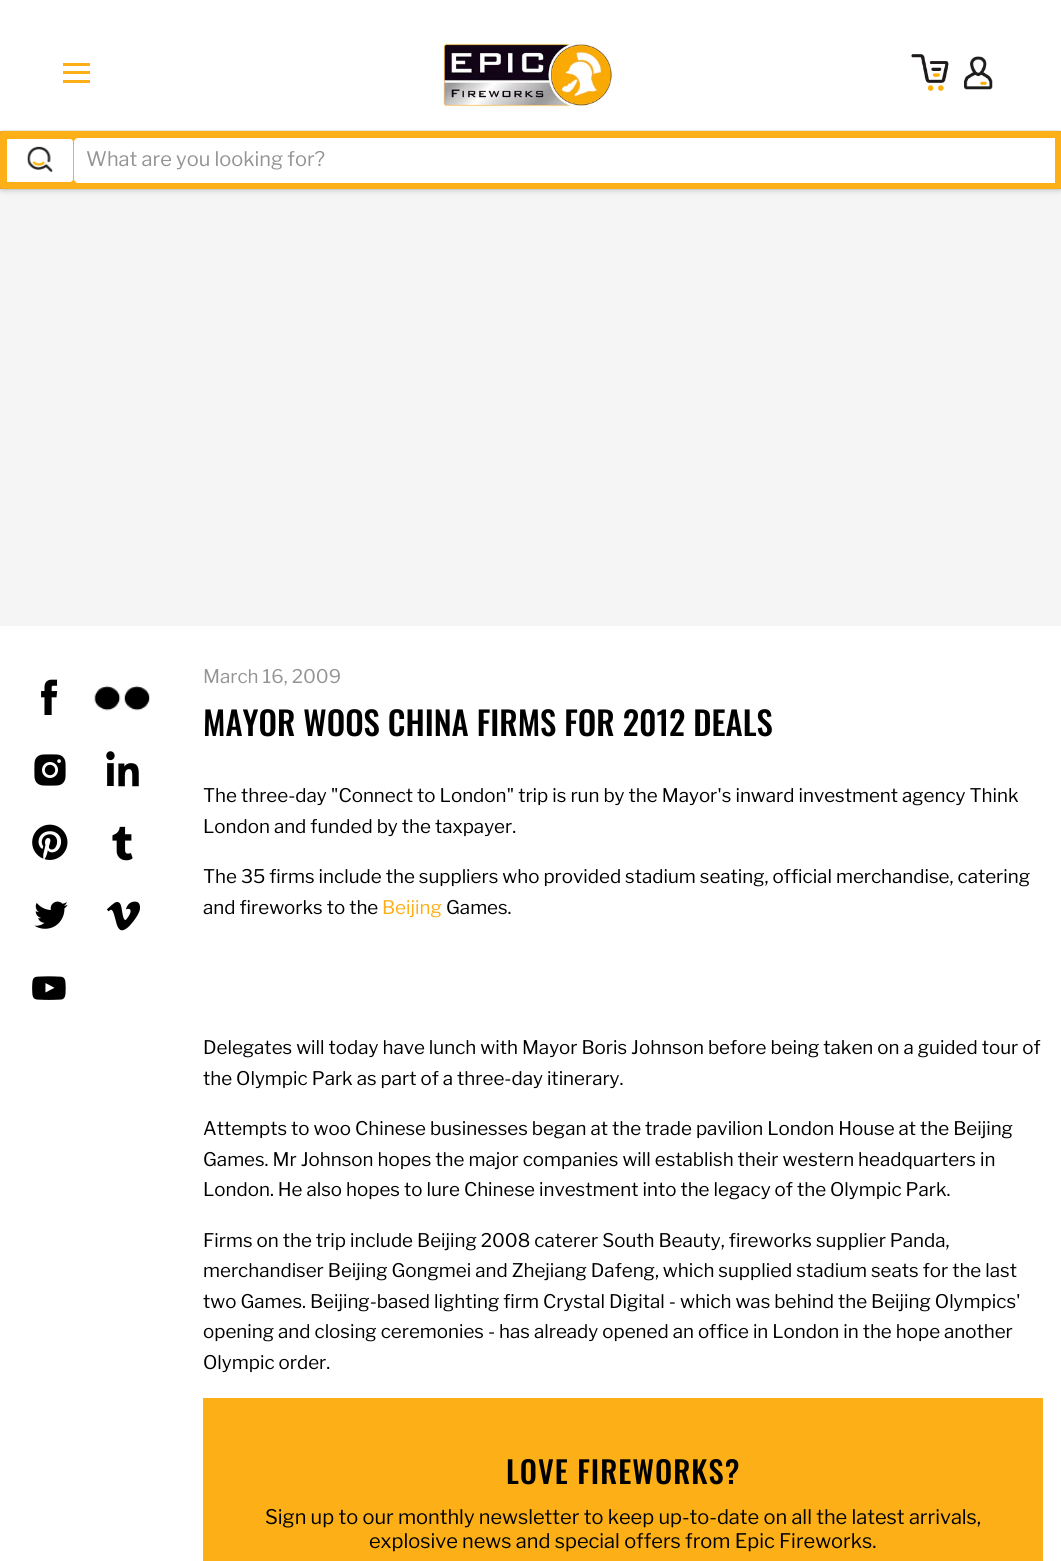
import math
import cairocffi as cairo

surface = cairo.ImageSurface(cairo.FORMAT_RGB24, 1061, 1561)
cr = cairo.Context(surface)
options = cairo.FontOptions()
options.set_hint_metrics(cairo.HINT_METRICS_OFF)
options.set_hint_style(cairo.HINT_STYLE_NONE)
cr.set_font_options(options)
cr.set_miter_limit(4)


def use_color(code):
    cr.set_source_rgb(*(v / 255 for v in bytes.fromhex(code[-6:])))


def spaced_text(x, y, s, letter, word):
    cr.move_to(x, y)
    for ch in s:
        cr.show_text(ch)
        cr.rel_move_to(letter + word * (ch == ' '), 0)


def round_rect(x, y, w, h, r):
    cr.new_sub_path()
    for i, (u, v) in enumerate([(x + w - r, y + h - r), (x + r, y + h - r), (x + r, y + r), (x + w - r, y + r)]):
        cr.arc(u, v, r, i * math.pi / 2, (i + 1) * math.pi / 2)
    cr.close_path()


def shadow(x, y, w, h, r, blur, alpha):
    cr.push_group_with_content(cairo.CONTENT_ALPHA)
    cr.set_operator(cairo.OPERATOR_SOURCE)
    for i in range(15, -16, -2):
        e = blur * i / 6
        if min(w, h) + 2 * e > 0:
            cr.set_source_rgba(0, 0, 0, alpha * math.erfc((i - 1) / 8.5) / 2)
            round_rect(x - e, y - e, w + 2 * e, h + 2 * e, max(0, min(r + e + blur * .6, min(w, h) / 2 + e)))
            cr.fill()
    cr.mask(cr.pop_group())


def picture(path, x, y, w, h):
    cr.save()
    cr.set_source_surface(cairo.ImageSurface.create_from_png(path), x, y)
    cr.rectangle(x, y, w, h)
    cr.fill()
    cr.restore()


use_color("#ffffff")
cr.paint()
use_color("#f5f5f5")
cr.rectangle(0, 189, 1061, 437)
cr.fill()
use_color("#808080")
shadow(0, 1, 1061, 189, 0, 2.5, 0.25)
use_color("#ffffff")
cr.rectangle(0, 0, 1061, 131)
cr.fill()
use_color("#fcaf17")
cr.rectangle(63, 63, 27, 3)
cr.fill()
cr.rectangle(63, 71, 27, 3)
cr.fill()
cr.rectangle(63, 80, 27, 3)
cr.fill()
picture("img1.png", 911, 54, 38, 37)
picture("img2.png", 964, 56, 29, 34)
picture("img3.png", 439, 40, 175, 69)
cr.rectangle(0, 131, 1061, 58)
cr.fill()
cr.save()
cr.set_fill_rule(cairo.FILL_RULE_EVEN_ODD)
cr.new_path()
cr.move_to(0, 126)
cr.line_to(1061, 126)
cr.line_to(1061, 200)
cr.line_to(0, 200)
cr.close_path()
cr.move_to(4, 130)
cr.line_to(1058, 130)
cr.curve_to(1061, 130, 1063, 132, 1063, 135)
cr.line_to(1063, 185)
cr.curve_to(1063, 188, 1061, 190, 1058, 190)
cr.line_to(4, 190)
cr.curve_to(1, 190, -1, 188, -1, 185)
cr.line_to(-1, 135)
cr.curve_to(-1, 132, 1, 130, 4, 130)
cr.close_path()
cr.clip()
use_color("#808080")
shadow(-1, 133, 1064, 60, 5, 2, 0.11)
cr.restore()
round_rect(-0.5, 130.5, 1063, 59, 4.5)
cr.set_source_rgba(0.502, 0.502, 0.502, 0.2)
cr.set_line_width(1)
cr.stroke()
use_color("#ffffff")
cr.new_path()
cr.move_to(6.5, 138.5)
cr.line_to(70, 138.5)
cr.curve_to(72, 138.5, 73.5, 140, 73.5, 142)
cr.line_to(73.5, 179)
cr.curve_to(73.5, 181, 72, 182.5, 70, 182.5)
cr.line_to(6.5, 182.5)
cr.close_path()
cr.fill_preserve()
use_color("#fcaf17")
cr.stroke()
picture("img4.png", 27, 146, 26, 26)
use_color("#ffffff")
cr.new_path()
cr.move_to(78, 138)
cr.line_to(1055, 138)
cr.line_to(1055, 183)
cr.line_to(78, 183)
cr.curve_to(76, 183, 74, 181, 74, 179)
cr.line_to(74, 142)
cr.curve_to(74, 140, 76, 138, 78, 138)
cr.close_path()
cr.fill()
cr.select_font_face("Libre Franklin")
cr.set_font_size(20)
use_color("#949494")
cr.move_to(86, 166)
cr.show_text("What are you looking for?")
picture("img5.png", 41, 679, 17, 36)
picture("img6.png", 94, 685, 56, 26)
picture("img7.png", 34, 754, 32, 32)
picture("img8.png", 106, 751, 33, 36)
picture("img9.png", 32, 824, 36, 36)
picture("img10.png", 112, 826, 21, 35)
picture("img11.png", 34, 901, 34, 28)
picture("img12.png", 107, 901, 33, 30)
picture("img13.png", 32, 976, 34, 24)
cr.set_font_size(18.75)
cr.move_to(203, 683)
cr.show_text("March 16, 2009")
cr.select_font_face("Oswald Medium")
cr.set_font_size(32.8)
use_color("#000000")
cr.move_to(203, 736)
cr.show_text("MAYOR WOOS CHINA FIRMS FOR 2012 DEALS")
cr.select_font_face("Libre Franklin")
cr.set_font_size(18.75)
cr.move_to(203, 802)
cr.show_text("The three-day \"Connect to London\" trip is run by the Mayor's inward investment agency Think")
cr.move_to(203, 833)
cr.show_text("London and funded by the taxpayer.")
cr.move_to(203, 883)
cr.show_text("The 35 firms include the suppliers who provided stadium seating, official merchandise, catering")
cr.move_to(203, 914)
cr.show_text("and fireworks to the")
use_color("#fcaf17")
cr.move_to(382, 914)
cr.show_text("Beijing")
use_color("#000000")
cr.move_to(446, 914)
cr.show_text("Games.")
cr.move_to(203, 1054)
cr.show_text("Delegates will today have lunch with Mayor Boris Johnson before being taken on a guided tour of")
cr.move_to(203, 1085)
cr.show_text("the Olympic Park as part of a three-day itinerary.")
cr.move_to(203, 1135)
cr.show_text("Attempts to woo Chinese businesses began at the trade pavilion London House at the Beijing")
cr.move_to(203, 1166)
cr.show_text("Games. Mr Johnson hopes the major companies will establish their western headquarters in")
cr.move_to(203, 1196)
cr.show_text("London. He also hopes to lure Chinese investment into the legacy of the Olympic Park.")
cr.move_to(203, 1247)
cr.show_text("Firms on the trip include Beijing 2008 caterer South Beauty, fireworks supplier Panda,")
cr.move_to(203, 1277)
cr.show_text("merchandiser Beijing Gongmei and Zhejiang Dafeng, which supplied stadium seats for the last")
cr.move_to(203, 1308)
cr.show_text("two Games. Beijing-based lighting firm Crystal Digital - which was behind the Beijing Olympics'")
cr.move_to(203, 1338)
cr.show_text("opening and closing ceremonies - has already opened an office in London in the hope another")
cr.move_to(203, 1369)
cr.show_text("Olympic order.")
use_color("#fcaf17")
cr.rectangle(203, 1398, 840, 163)
cr.fill()
cr.select_font_face("Oswald Medium")
cr.set_font_size(30.5)
use_color("#000000")
spaced_text(506, 1484, "LOVE FIREWORKS?", 1, 0)
cr.select_font_face("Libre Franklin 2")
cr.set_font_size(20)
cr.move_to(265, 1524)
cr.show_text("Sign up to our monthly newsletter to keep up-to-date on all the latest arrivals,")
cr.move_to(369, 1548)
cr.show_text("explosive news and special offers from Epic Fireworks.")
surface.write_to_png("result.png")
